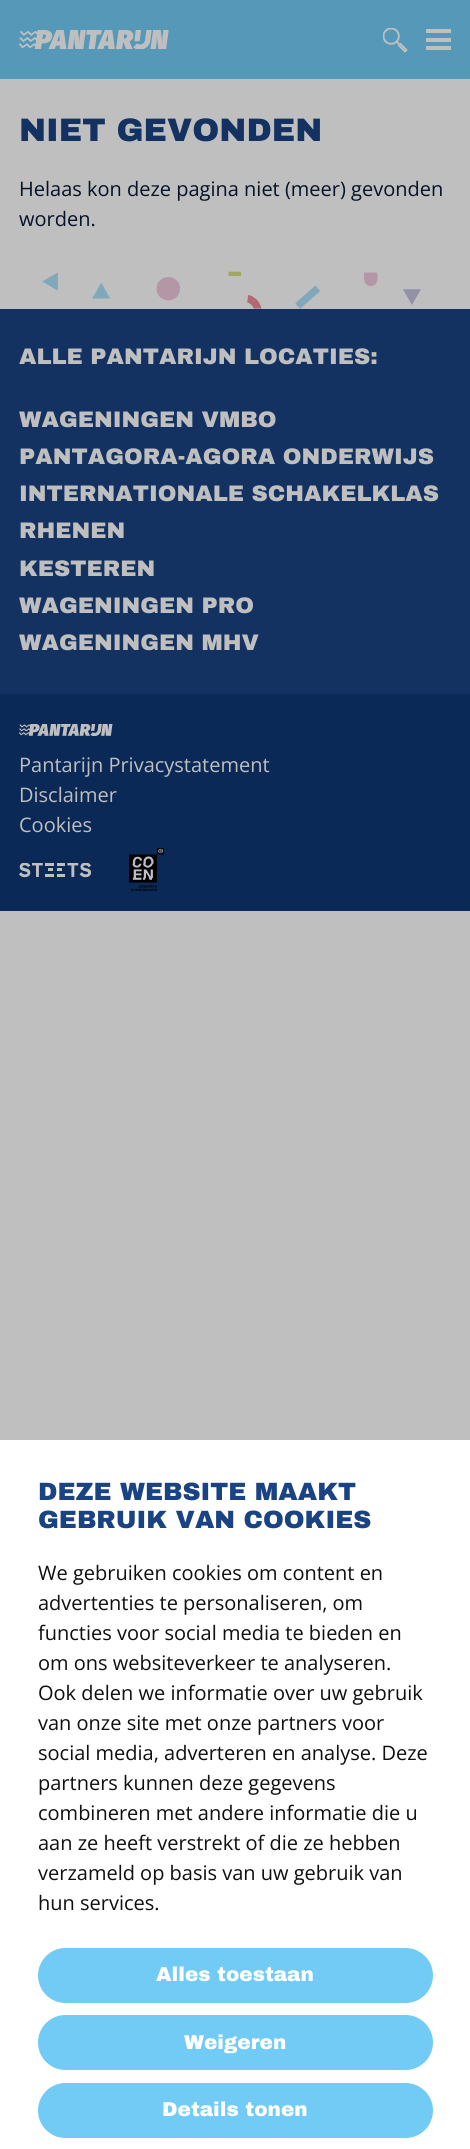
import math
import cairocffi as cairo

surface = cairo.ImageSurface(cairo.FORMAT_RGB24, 470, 2149)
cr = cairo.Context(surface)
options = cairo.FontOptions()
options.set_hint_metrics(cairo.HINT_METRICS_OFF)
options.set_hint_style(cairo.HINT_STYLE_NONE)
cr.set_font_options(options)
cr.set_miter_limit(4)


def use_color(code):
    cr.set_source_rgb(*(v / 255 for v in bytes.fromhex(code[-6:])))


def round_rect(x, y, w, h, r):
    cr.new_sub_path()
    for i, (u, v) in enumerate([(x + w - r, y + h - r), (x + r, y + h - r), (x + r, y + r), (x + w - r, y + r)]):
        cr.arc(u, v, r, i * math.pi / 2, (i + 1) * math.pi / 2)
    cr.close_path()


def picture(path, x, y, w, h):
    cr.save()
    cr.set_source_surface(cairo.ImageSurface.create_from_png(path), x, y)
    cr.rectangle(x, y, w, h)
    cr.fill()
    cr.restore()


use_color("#bfbfbf")
cr.paint()
use_color("#5598b7")
cr.rectangle(0, 0, 470, 79)
cr.fill()
picture("img1.png", 19, 30, 150, 19)
picture("img2.png", 383, 28, 25, 25)
use_color("#bfbfbf")
cr.rectangle(426, 38, 25, 4)
cr.fill()
cr.rectangle(426, 29, 25, 4)
cr.fill()
cr.rectangle(426, 46, 25, 4)
cr.fill()
cr.select_font_face("Archivo Black Black")
cr.set_font_size(32.5)
use_color("#133262")
cr.move_to(19, 141)
cr.show_text("NIET GEVONDEN")
cr.select_font_face("Open Sans")
cr.set_font_size(20)
use_color("#051227")
cr.move_to(19, 196)
cr.show_text("Helaas kon deze pagina niet (meer) gevonden")
cr.move_to(19, 226)
cr.show_text("worden.")
picture("img3.png", 42, 271, 379, 38)
use_color("#133262")
cr.rectangle(0, 309, 470, 385)
cr.fill()
cr.select_font_face("Archivo Black Black")
cr.set_font_size(22.5)
use_color("#bfbfbf")
cr.move_to(19, 364)
cr.show_text("ALLE PANTARIJN LOCATIES:")
cr.move_to(19, 427)
cr.show_text("WAGENINGEN VMBO")
cr.move_to(19, 464)
cr.show_text("PANTAGORA-AGORA ONDERWIJS")
cr.move_to(19, 501)
cr.show_text("INTERNATIONALE SCHAKELKLAS")
cr.move_to(19, 538)
cr.show_text("RHENEN")
cr.move_to(19, 576)
cr.show_text("KESTEREN")
cr.move_to(19, 613)
cr.show_text("WAGENINGEN PRO")
cr.move_to(19, 650)
cr.show_text("WAGENINGEN MHV")
use_color("#0b2956")
cr.rectangle(0, 694, 470, 217)
cr.fill()
picture("img4.png", 19, 724, 94, 12)
cr.select_font_face("Open Sans")
cr.set_font_size(20)
use_color("#bfbfbf")
cr.move_to(19, 772)
cr.show_text("Pantarijn Privacystatement")
cr.move_to(19, 802)
cr.show_text("Disclaimer")
cr.move_to(19, 832)
cr.show_text("Cookies")
picture("img5.png", 19, 863, 72, 15)
picture("img6.png", 129, 848, 35, 43)
use_color("#ffffff")
cr.rectangle(0, 1440, 470, 709)
cr.fill()
cr.select_font_face("Archivo Black Black")
cr.set_font_size(25)
use_color("#194383")
cr.move_to(38, 1500)
cr.show_text("DEZE WEBSITE MAAKT")
cr.move_to(38, 1528)
cr.show_text("GEBRUIK VAN COOKIES")
cr.select_font_face("Open Sans")
cr.set_font_size(20)
use_color("#0f0f0f")
cr.move_to(38, 1580)
cr.show_text("We gebruiken cookies om content en")
cr.move_to(38, 1610)
cr.show_text("advertenties te personaliseren, om")
cr.move_to(38, 1640)
cr.show_text("functies voor social media te bieden en")
cr.move_to(38, 1670)
cr.show_text("om ons websiteverkeer te analyseren.")
cr.move_to(38, 1700)
cr.show_text("Ook delen we informatie over uw gebruik")
cr.move_to(38, 1730)
cr.show_text("van onze site met onze partners voor")
cr.move_to(38, 1760)
cr.show_text("social media, adverteren en analyse. Deze")
cr.move_to(38, 1790)
cr.show_text("partners kunnen deze gegevens")
cr.move_to(38, 1820)
cr.show_text("combineren met andere informatie die u")
cr.move_to(38, 1850)
cr.show_text("aan ze heeft verstrekt of die ze hebben")
cr.move_to(38, 1880)
cr.show_text("verzameld op basis van uw gebruik van")
cr.move_to(38, 1910)
cr.show_text("hun services.")
use_color("#71cbf4")
round_rect(38, 1948, 395, 55, 27.5)
cr.fill()
cr.select_font_face("Archivo Black Black")
use_color("#ffffff")
cr.move_to(156, 1981)
cr.show_text("Alles toestaan")
use_color("#71cbf4")
round_rect(38, 2015, 395, 55, 27.5)
cr.fill()
use_color("#ffffff")
cr.move_to(184, 2049)
cr.show_text("Weigeren")
use_color("#71cbf4")
round_rect(38, 2083, 395, 55, 27.5)
cr.fill()
use_color("#ffffff")
cr.move_to(162, 2116)
cr.show_text("Details tonen")
surface.write_to_png("result.png")
